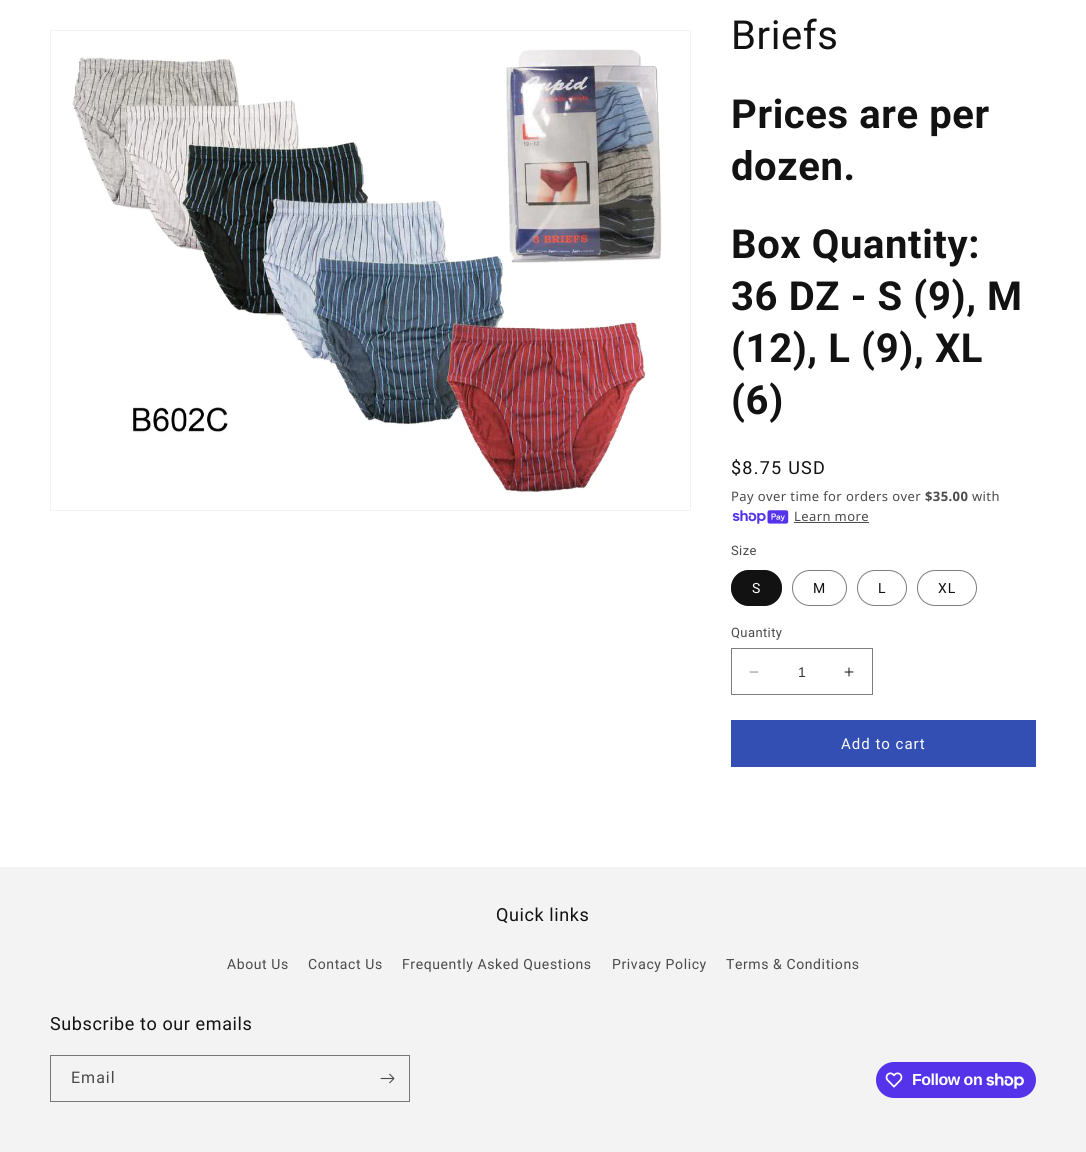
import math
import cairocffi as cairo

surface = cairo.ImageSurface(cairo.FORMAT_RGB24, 1086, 1152)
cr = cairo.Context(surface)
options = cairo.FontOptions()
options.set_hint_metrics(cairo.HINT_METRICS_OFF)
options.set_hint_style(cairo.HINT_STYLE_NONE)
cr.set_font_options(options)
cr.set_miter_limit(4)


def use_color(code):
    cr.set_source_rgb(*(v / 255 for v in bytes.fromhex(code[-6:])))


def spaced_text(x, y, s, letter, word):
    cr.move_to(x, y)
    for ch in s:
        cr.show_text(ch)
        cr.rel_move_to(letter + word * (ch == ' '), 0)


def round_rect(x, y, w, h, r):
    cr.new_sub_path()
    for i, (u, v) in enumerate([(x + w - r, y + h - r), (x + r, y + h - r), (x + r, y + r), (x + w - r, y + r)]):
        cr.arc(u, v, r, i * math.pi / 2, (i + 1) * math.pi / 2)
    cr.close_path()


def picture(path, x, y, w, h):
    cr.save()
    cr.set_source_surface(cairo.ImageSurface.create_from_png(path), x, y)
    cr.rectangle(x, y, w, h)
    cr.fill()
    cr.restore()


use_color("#ffffff")
cr.paint()
cr.rectangle(50.5, 30.5, 640, 480)
use_color("#f3f3f3")
cr.set_line_width(1)
cr.stroke()
picture("img1.png", 72, 49, 590, 445)
cr.select_font_face("Roboto")
cr.set_font_size(40)
use_color("#121212")
spaced_text(731, 49, "Briefs", 0.6, 0)
cr.select_font_face("Roboto", cairo.FONT_SLANT_NORMAL, cairo.FONT_WEIGHT_BOLD)
spaced_text(731, 128, "Prices are per", 0.6, 0)
spaced_text(731, 180, "dozen.", 0.6, 0)
spaced_text(731, 258, "Box Quantity:", 0.6, 0)
spaced_text(731, 310, "36 DZ - S (9), M", 0.6, 0)
spaced_text(731, 362, "(12), L (9), XL", 0.6, 0)
spaced_text(731, 414, "(6)", 0.6, 0)
cr.select_font_face("Roboto")
cr.set_font_size(18)
spaced_text(731, 474, "$8.75 USD", 1.25, 0)
cr.select_font_face("Noto Sans")
cr.set_font_size(13)
use_color("#4a4a4a")
spaced_text(731, 501, "Pay over time for orders over", 0.4, 0)
cr.select_font_face("Noto Sans", cairo.FONT_SLANT_NORMAL, cairo.FONT_WEIGHT_BOLD)
spaced_text(925, 501, "$35.00", 0.4, 0)
cr.select_font_face("Noto Sans")
spaced_text(972, 501, "with", 0.4, 0)
picture("img2.png", 732, 510, 57, 14)
spaced_text(794, 521, "Learn more", 0.4, 0)
use_color("#4d4d4d")
cr.rectangle(794, 522, 75, 1)
cr.fill()
cr.select_font_face("Roboto")
use_color("#4a4a4a")
spaced_text(731, 555, "Size", 0.4, 0)
use_color("#121212")
round_rect(731, 570, 51, 36, 18)
cr.fill()
round_rect(731.5, 570.5, 50, 35, 17.5)
cr.set_source_rgba(0.071, 0.071, 0.071, 0.55)
cr.stroke()
cr.set_font_size(14)
use_color("#ffffff")
spaced_text(752, 593, "S", 1, 0)
round_rect(792.5, 570.5, 54, 35, 17.5)
use_color("#7d7d7d")
cr.stroke()
use_color("#121212")
spaced_text(813, 593, "M", 1, 0)
round_rect(857.5, 570.5, 49, 35, 17.5)
use_color("#7d7d7d")
cr.stroke()
use_color("#121212")
spaced_text(878, 593, "L", 1, 0)
round_rect(917.5, 570.5, 59, 35, 17.5)
use_color("#7d7d7d")
cr.stroke()
use_color("#121212")
spaced_text(938, 593, "XL", 1, 0)
cr.set_font_size(13)
use_color("#4a4a4a")
spaced_text(731, 637, "Quantity", 0.4, 0)
picture("img3.png", 749, 671, 10, 2)
picture("img4.png", 844, 667, 10, 10)
cr.rectangle(731.5, 648.5, 141, 46)
use_color("#7d7d7d")
cr.stroke()
cr.select_font_face("Liberation Sans")
cr.set_font_size(14)
use_color("#363636")
cr.move_to(798, 677)
cr.show_text("1")
use_color("#334fb4")
cr.rectangle(731, 720, 305, 47)
cr.fill()
cr.select_font_face("Roboto")
cr.set_font_size(15)
use_color("#ffffff")
spaced_text(841, 749, "Add to cart", 1, 0)
use_color("#f3f3f3")
cr.rectangle(0, 867, 1086, 285)
cr.fill()
cr.set_font_size(18)
use_color("#121212")
spaced_text(496, 921, "Quick links", 0.6, 0)
cr.set_font_size(14)
use_color("#4a4a4a")
spaced_text(227, 969, "About Us", 0.6, 0)
spaced_text(308, 969, "Contact Us", 0.6, 0)
spaced_text(402, 969, "Frequently Asked Questions", 0.6, 0)
spaced_text(612, 969, "Privacy Policy", 0.6, 0)
spaced_text(726, 969, "Terms & Conditions", 0.6, 0)
cr.set_font_size(18)
use_color("#121212")
spaced_text(50, 1030, "Subscribe to our emails", 0.6, 0)
cr.rectangle(50.5, 1055.5, 359, 46)
use_color("#777777")
cr.stroke()
cr.set_font_size(16)
use_color("#4a4a4a")
spaced_text(71, 1083, "Email", 1, 0)
picture("img5.png", 380, 1073, 15, 11)
use_color("#5433eb")
round_rect(876, 1062, 160, 36, 18)
cr.fill()
picture("img6.png", 885, 1072, 18, 16)
cr.select_font_face("Liberation Sans", cairo.FONT_SLANT_NORMAL, cairo.FONT_WEIGHT_BOLD)
use_color("#ffffff")
spaced_text(912, 1085, "Follow on", -0.5, 0)
picture("img7.png", 986, 1073, 38, 16)
surface.write_to_png("result.png")
